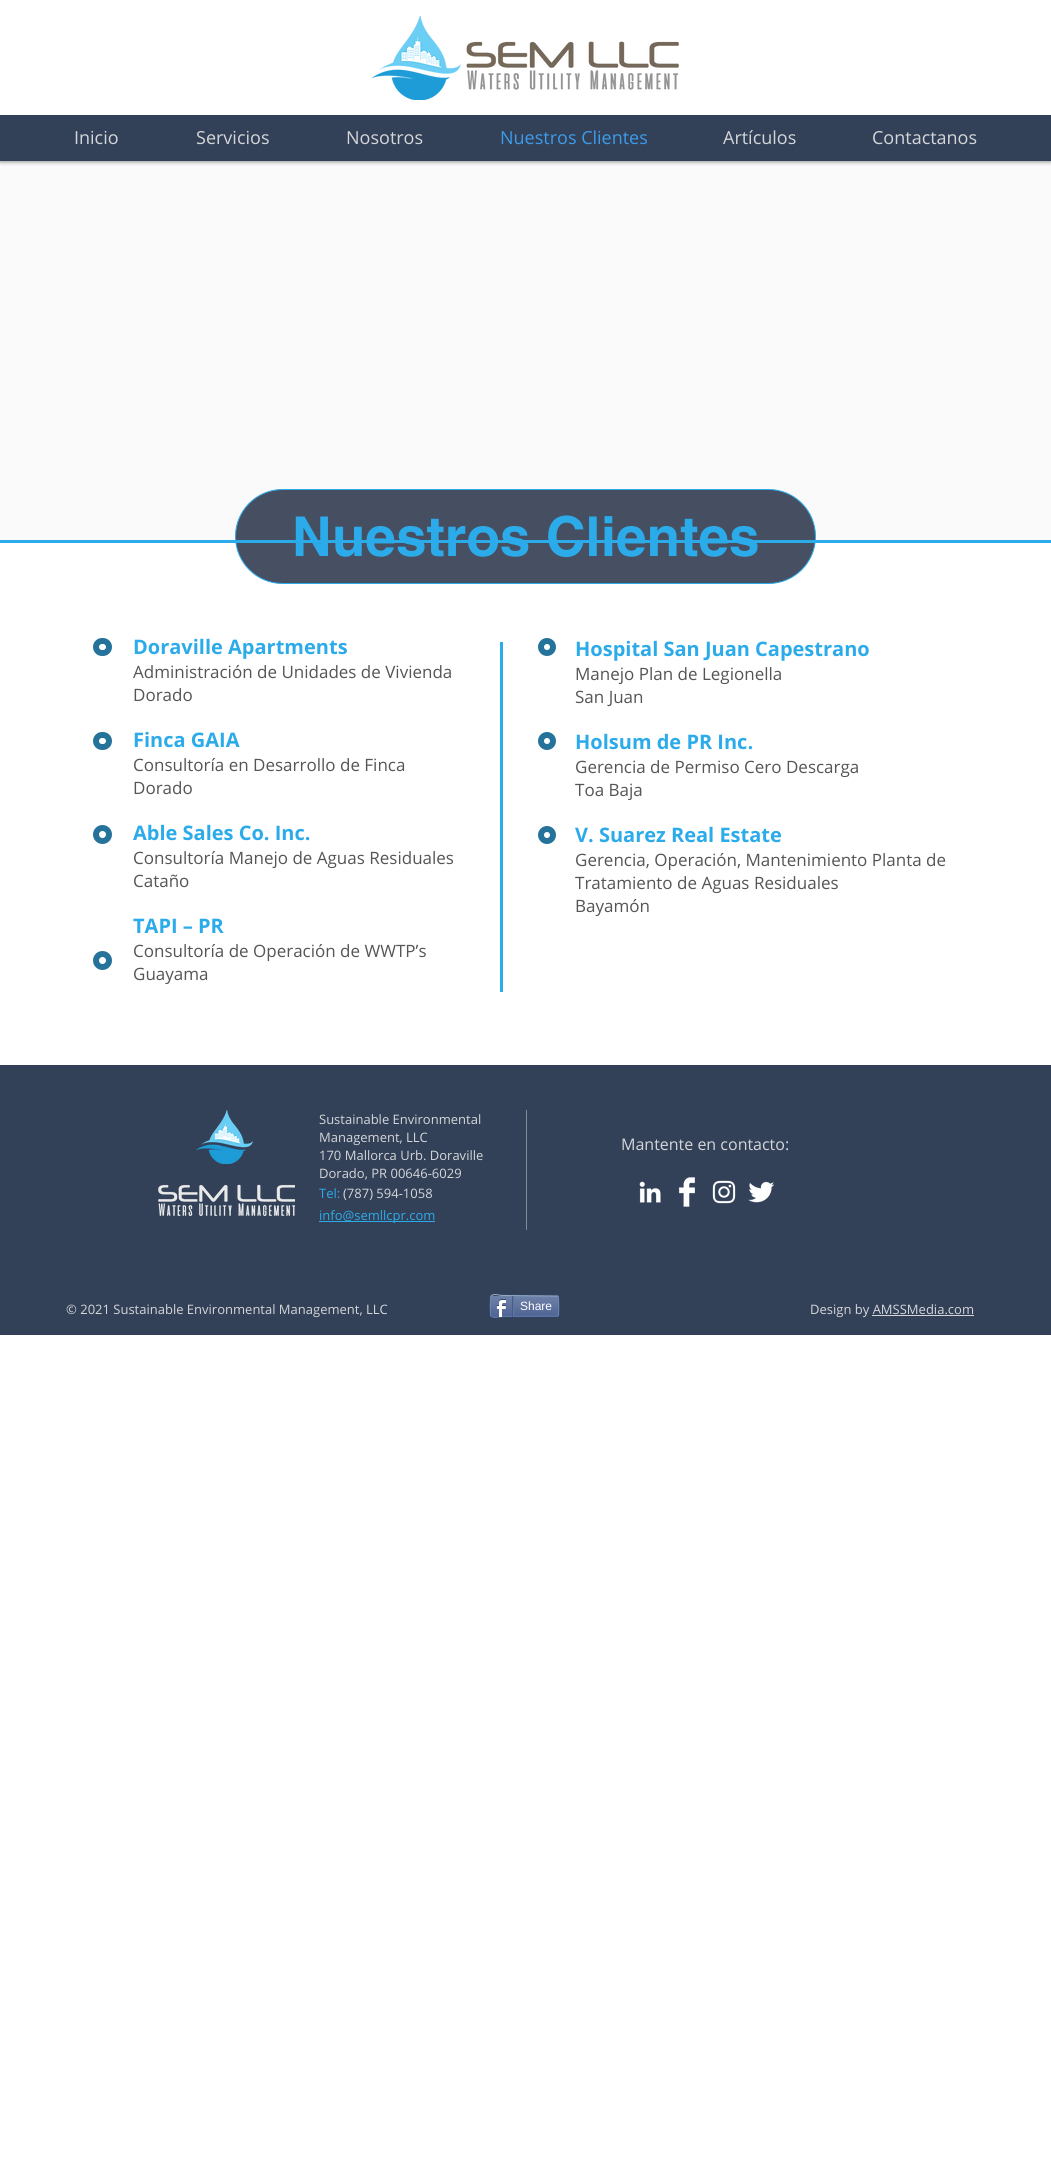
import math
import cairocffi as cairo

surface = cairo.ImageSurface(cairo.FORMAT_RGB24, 1051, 2159)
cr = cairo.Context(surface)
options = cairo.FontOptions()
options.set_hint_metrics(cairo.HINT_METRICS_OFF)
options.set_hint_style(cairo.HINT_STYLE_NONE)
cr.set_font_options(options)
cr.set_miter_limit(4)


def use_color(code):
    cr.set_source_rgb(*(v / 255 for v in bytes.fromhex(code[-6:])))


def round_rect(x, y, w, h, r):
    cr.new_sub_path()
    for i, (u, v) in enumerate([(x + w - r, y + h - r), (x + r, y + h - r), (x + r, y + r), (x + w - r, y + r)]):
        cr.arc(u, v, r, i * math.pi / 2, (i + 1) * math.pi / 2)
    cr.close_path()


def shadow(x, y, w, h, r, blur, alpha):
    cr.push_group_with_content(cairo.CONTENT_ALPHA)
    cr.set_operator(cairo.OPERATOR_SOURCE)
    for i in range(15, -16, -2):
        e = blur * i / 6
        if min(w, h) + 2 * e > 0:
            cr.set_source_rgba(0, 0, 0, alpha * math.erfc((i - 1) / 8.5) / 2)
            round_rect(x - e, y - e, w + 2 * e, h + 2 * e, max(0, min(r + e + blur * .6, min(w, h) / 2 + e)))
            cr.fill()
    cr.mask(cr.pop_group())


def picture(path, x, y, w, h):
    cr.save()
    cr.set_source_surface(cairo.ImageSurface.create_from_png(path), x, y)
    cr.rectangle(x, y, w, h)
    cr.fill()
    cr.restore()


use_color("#ffffff")
cr.paint()
use_color("#fafafa")
cr.rectangle(0, 161, 1051, 379)
cr.fill()
cr.save()
cr.rectangle(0, 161, 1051, 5)
cr.clip()
use_color("#000000")
shadow(0, 0, 1051, 161, 0, 2.5, 0.6)
cr.restore()
picture("img1.png", 372, 16, 307, 84)
use_color("#324158")
cr.rectangle(0, 115, 1051, 46)
cr.fill()
cr.select_font_face("Open Sans")
cr.set_font_size(18)
use_color("#d5d6d9")
cr.move_to(74, 144)
cr.show_text("Inicio")
cr.move_to(196, 144)
cr.show_text("Servicios")
cr.move_to(346, 144)
cr.show_text("Nosotros")
use_color("#3d9be9")
cr.move_to(500, 144)
cr.show_text("Nuestros Clientes")
use_color("#d5d6d9")
cr.move_to(723, 144)
cr.show_text("Artículos")
cr.move_to(872, 144)
cr.show_text("Contactanos")
cr.set_source_rgba(0.055, 0.098, 0.192, 0.76)
round_rect(235.5, 489.5, 580, 94, 47)
cr.fill_preserve()
use_color("#2cabea")
cr.set_line_width(1)
cr.stroke()
cr.select_font_face("helvetica", cairo.FONT_SLANT_NORMAL, cairo.FONT_WEIGHT_BOLD)
cr.set_font_size(55)
cr.move_to(292, 556)
cr.show_text("Nuestros Clientes")
cr.rectangle(0, 540, 1051, 3)
cr.fill()
round_rect(96, 641, 13, 12, 6)
use_color("#25729a")
cr.set_line_width(6)
cr.stroke()
cr.select_font_face("Open Sans", cairo.FONT_SLANT_NORMAL, cairo.FONT_WEIGHT_BOLD)
cr.set_font_size(20)
use_color("#2cabea")
cr.move_to(133, 654)
cr.show_text("Doraville Apartments")
cr.select_font_face("Open Sans")
cr.set_font_size(17)
use_color("#555555")
cr.move_to(133, 678)
cr.show_text("Administración de Unidades de Vivienda")
cr.move_to(133, 701)
cr.show_text("Dorado")
cr.select_font_face("Open Sans", cairo.FONT_SLANT_NORMAL, cairo.FONT_WEIGHT_BOLD)
cr.set_font_size(20)
use_color("#2cabea")
cr.move_to(133, 747)
cr.show_text("Finca GAIA")
cr.select_font_face("Open Sans")
cr.set_font_size(17)
use_color("#555555")
cr.move_to(133, 771)
cr.show_text("Consultoría en Desarrollo de Finca")
cr.move_to(133, 794)
cr.show_text("Dorado")
cr.select_font_face("Open Sans", cairo.FONT_SLANT_NORMAL, cairo.FONT_WEIGHT_BOLD)
cr.set_font_size(20)
use_color("#2cabea")
cr.move_to(133, 840)
cr.show_text("Able Sales Co. Inc.")
cr.select_font_face("Open Sans")
cr.set_font_size(17)
use_color("#555555")
cr.move_to(133, 864)
cr.show_text("Consultoría Manejo de Aguas Residuales")
cr.move_to(133, 887)
cr.show_text("Cataño")
cr.select_font_face("Open Sans", cairo.FONT_SLANT_NORMAL, cairo.FONT_WEIGHT_BOLD)
cr.set_font_size(20)
use_color("#2cabea")
cr.move_to(133, 933)
cr.show_text("TAPI – PR")
cr.select_font_face("Open Sans")
cr.set_font_size(17)
use_color("#555555")
cr.move_to(133, 957)
cr.show_text("Consultoría de Operación de WWTP’s")
cr.move_to(133, 980)
cr.show_text("Guayama")
use_color("#2cabea")
cr.rectangle(500, 642, 3, 350)
cr.fill()
cr.arc(547, 647, 6, 0, 2 * math.pi)
use_color("#25729a")
cr.stroke()
cr.select_font_face("Open Sans", cairo.FONT_SLANT_NORMAL, cairo.FONT_WEIGHT_BOLD)
cr.set_font_size(20)
use_color("#2cabea")
cr.move_to(575, 656)
cr.show_text("Hospital San Juan Capestrano")
cr.select_font_face("Open Sans")
cr.set_font_size(17)
use_color("#555555")
cr.move_to(575, 680)
cr.show_text("Manejo Plan de Legionella")
cr.move_to(575, 703)
cr.show_text("San Juan")
cr.select_font_face("Open Sans", cairo.FONT_SLANT_NORMAL, cairo.FONT_WEIGHT_BOLD)
cr.set_font_size(20)
use_color("#2cabea")
cr.move_to(575, 749)
cr.show_text("Holsum de PR Inc.")
cr.select_font_face("Open Sans")
cr.set_font_size(17)
use_color("#555555")
cr.move_to(575, 773)
cr.show_text("Gerencia de Permiso Cero Descarga")
cr.move_to(575, 796)
cr.show_text("Toa Baja")
cr.select_font_face("Open Sans", cairo.FONT_SLANT_NORMAL, cairo.FONT_WEIGHT_BOLD)
cr.set_font_size(20)
use_color("#2cabea")
cr.move_to(575, 842)
cr.show_text("V. Suarez Real Estate")
cr.select_font_face("Open Sans")
cr.set_font_size(17)
use_color("#555555")
cr.move_to(575, 866)
cr.show_text("Gerencia, Operación, Mantenimiento Planta de")
cr.move_to(575, 889)
cr.show_text("Tratamiento de Aguas Residuales")
cr.move_to(575, 912)
cr.show_text("Bayamón")
round_rect(96, 735, 13, 12, 6)
use_color("#25729a")
cr.stroke()
cr.arc(547, 741, 6, 0, 2 * math.pi)
cr.stroke()
cr.arc(102.5, 834.5, 6.5, 0, 2 * math.pi)
cr.stroke()
cr.arc(547, 835, 6, 0, 2 * math.pi)
cr.stroke()
cr.arc(102.5, 960.5, 6.5, 0, 2 * math.pi)
cr.stroke()
use_color("#324158")
cr.rectangle(0, 1065, 1051, 270)
cr.fill()
picture("img2.png", 196, 1110, 57, 54)
picture("img3.png", 158, 1184, 137, 32)
cr.set_font_size(13)
use_color("#d5d6d9")
cr.move_to(319, 1124)
cr.show_text("Sustainable Environmental")
cr.move_to(319, 1142)
cr.show_text("Management, LLC")
cr.move_to(319, 1160)
cr.show_text("170 Mallorca Urb. Doraville")
cr.move_to(319, 1178)
cr.show_text("Dorado, PR 00646-6029")
use_color("#2cabea")
cr.move_to(319, 1198)
cr.show_text("Tel:")
use_color("#d5d6d9")
cr.move_to(343, 1198)
cr.show_text("(787) 594-1058")
use_color("#2cabea")
cr.rectangle(319, 1221, 116, 1)
cr.fill()
cr.move_to(319, 1220)
cr.show_text("info@semllcpr.com")
use_color("#848c99")
cr.rectangle(526, 1110, 1, 120)
cr.fill()
cr.set_font_size(16)
use_color("#d5d6d9")
cr.move_to(621, 1150)
cr.show_text("Mantente en contacto:")
picture("img4.png", 639, 1181, 22, 22)
picture("img5.png", 678, 1177, 17, 30)
picture("img6.png", 712, 1180, 24, 24)
picture("img7.png", 748, 1181, 27, 22)
cr.set_font_size(13)
cr.move_to(66, 1314)
cr.show_text("© 2021 Sustainable Environmental Management, LLC")
round_rect(489.5, 1294.5, 70, 23, 2.5)
use_color("#2d4565")
cr.set_line_width(1)
cr.stroke()
picture("img8.png", 490, 1296, 69, 21)
cr.new_path()
cr.move_to(491, 1296)
cr.curve_to(494, 1293, 499, 1295.5, 503, 1295.5)
cr.line_to(558, 1296)
use_color("#9aabc6")
cr.stroke()
cr.new_path()
cr.move_to(558, 1296)
cr.curve_to(559, 1296.5, 559, 1315.5, 558, 1316)
use_color("#6f83ad")
cr.stroke()
cr.new_path()
cr.move_to(558, 1316)
cr.line_to(503, 1316.5)
cr.curve_to(499, 1316.5, 494, 1319, 491, 1316)
use_color("#6176a3")
cr.stroke()
cr.new_path()
cr.move_to(491, 1316)
cr.curve_to(490, 1315.5, 490, 1296.5, 491, 1296)
use_color("#6f83ad")
cr.stroke()
picture("img9.png", 496, 1299, 10, 18)
use_color("#425e85")
cr.rectangle(512, 1296, 1, 21)
cr.fill()
cr.select_font_face("Liberation Sans")
cr.set_font_size(12)
use_color("#ffffff")
cr.move_to(520, 1310)
cr.show_text("Share")
use_color("#6176a3")
cr.rectangle(513, 1296, 1, 20)
cr.fill()
cr.select_font_face("Open Sans")
cr.set_font_size(13)
use_color("#d5d6d9")
cr.move_to(810, 1314)
cr.show_text("Design by AMSSMedia.com")
cr.rectangle(872, 1315, 102, 1)
cr.fill()
surface.write_to_png("result.png")
